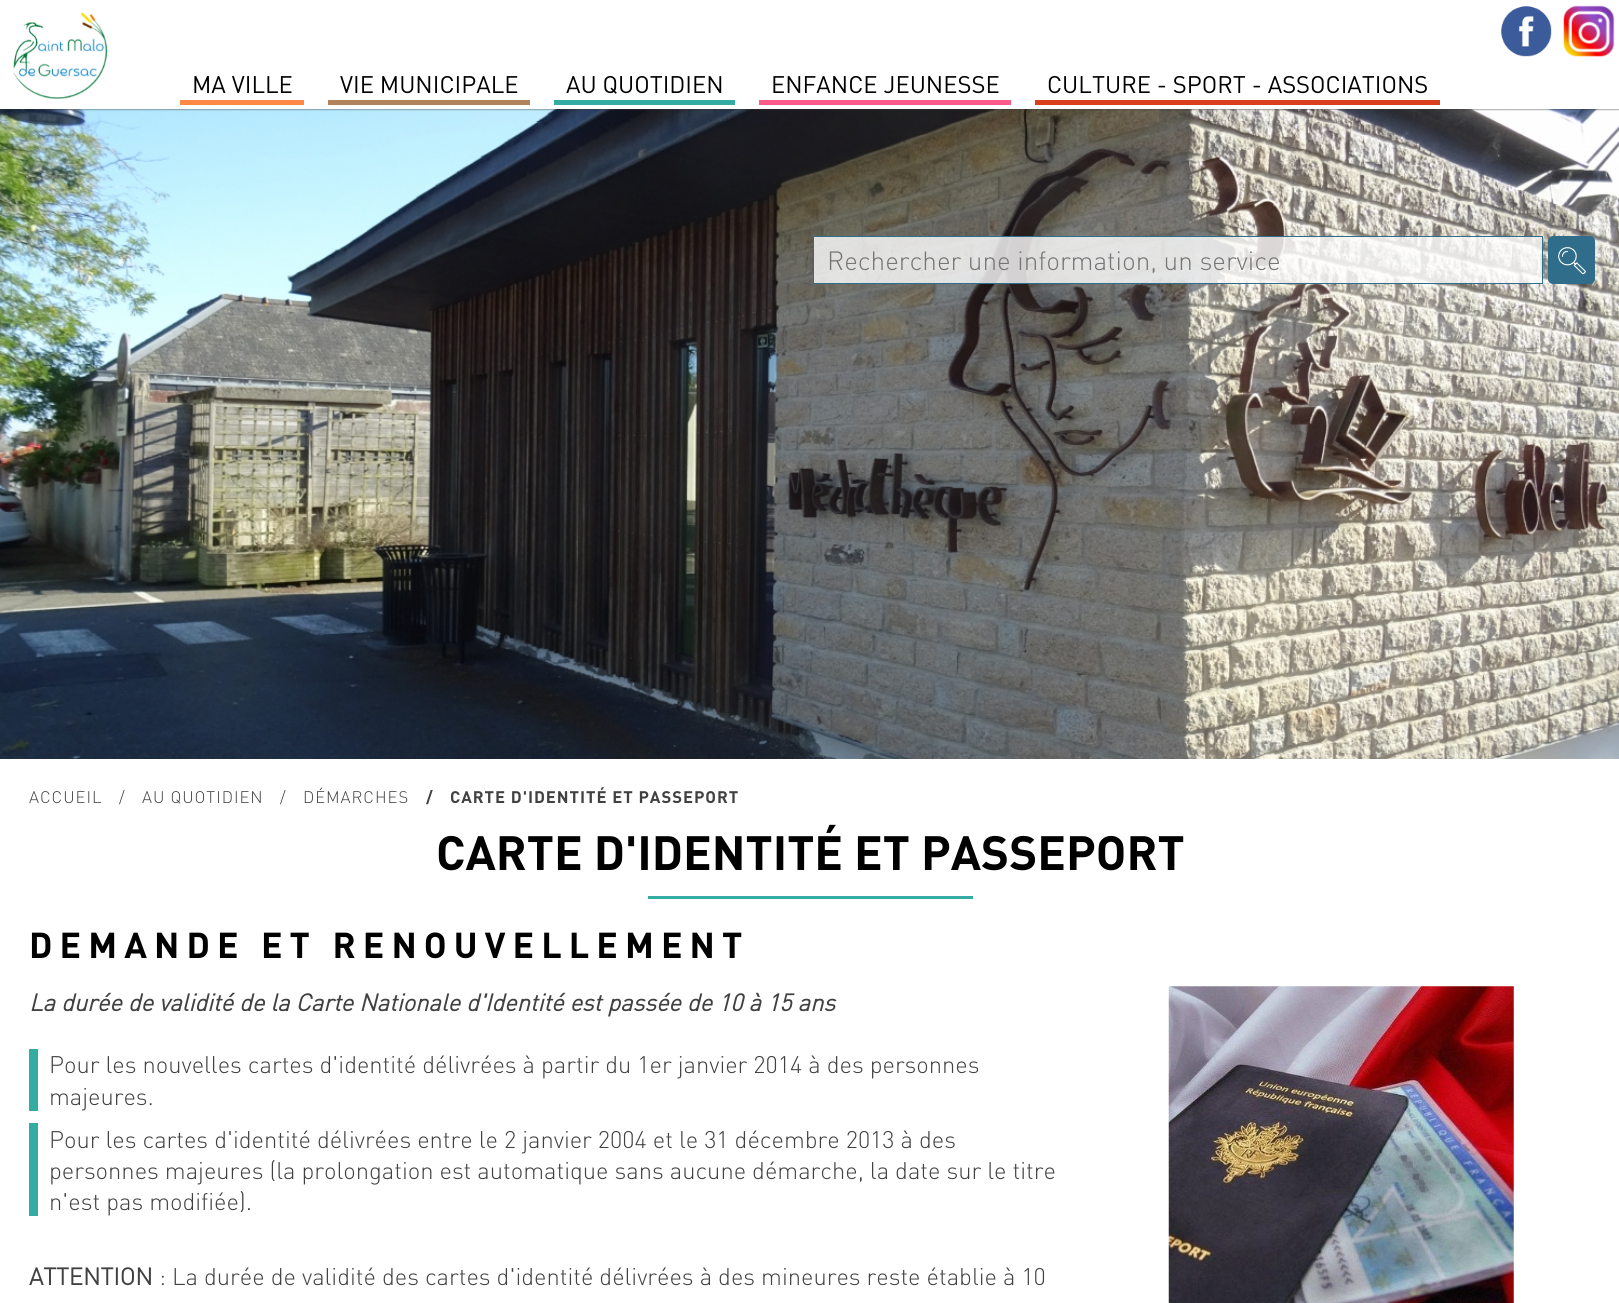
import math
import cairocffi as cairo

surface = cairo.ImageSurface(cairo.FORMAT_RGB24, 1619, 1303)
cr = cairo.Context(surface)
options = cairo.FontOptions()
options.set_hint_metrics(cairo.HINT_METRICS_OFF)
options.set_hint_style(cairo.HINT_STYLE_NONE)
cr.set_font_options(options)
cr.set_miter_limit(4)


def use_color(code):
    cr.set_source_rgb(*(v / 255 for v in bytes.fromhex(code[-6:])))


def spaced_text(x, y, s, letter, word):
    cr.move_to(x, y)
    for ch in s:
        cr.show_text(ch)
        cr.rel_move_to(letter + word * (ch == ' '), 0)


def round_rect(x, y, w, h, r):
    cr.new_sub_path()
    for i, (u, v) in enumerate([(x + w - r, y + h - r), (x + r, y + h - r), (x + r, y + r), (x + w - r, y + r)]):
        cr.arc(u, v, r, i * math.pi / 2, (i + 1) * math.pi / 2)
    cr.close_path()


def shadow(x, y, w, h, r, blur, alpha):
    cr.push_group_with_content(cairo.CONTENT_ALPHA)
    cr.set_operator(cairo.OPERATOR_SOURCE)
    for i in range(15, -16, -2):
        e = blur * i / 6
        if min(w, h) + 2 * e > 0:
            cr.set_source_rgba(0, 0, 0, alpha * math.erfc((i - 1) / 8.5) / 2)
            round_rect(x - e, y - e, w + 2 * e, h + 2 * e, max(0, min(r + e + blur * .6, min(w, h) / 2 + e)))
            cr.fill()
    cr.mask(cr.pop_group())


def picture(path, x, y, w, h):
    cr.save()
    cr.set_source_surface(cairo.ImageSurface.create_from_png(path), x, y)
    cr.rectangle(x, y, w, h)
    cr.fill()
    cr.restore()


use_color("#ffffff")
cr.paint()
picture("img4.png", 0, 109, 1619, 650)
use_color("#333333")
shadow(0, 0, 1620, 109, 0, 1, 1)
use_color("#ffffff")
cr.rectangle(0, 0, 1619, 109)
cr.fill()
picture("img1.png", 1501, 6, 51, 51)
picture("img2.png", 1563, 5, 52, 52)
picture("img3.png", 13, 12, 95, 88)
cr.select_font_face("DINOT")
cr.set_font_size(23.75)
use_color("#000000")
cr.move_to(192, 93)
cr.show_text("MA VILLE")
use_color("#fe8946")
cr.rectangle(180, 100, 124, 5)
cr.fill()
use_color("#000000")
cr.move_to(340, 93)
cr.show_text("VIE MUNICIPALE")
use_color("#b0835c")
cr.rectangle(328, 100, 202, 5)
cr.fill()
use_color("#000000")
cr.move_to(566, 93)
cr.show_text("AU QUOTIDIEN")
use_color("#34aca3")
cr.rectangle(554, 100, 181, 5)
cr.fill()
use_color("#000000")
cr.move_to(771, 93)
cr.show_text("ENFANCE JEUNESSE")
use_color("#fb5b8b")
cr.rectangle(759, 100, 252, 5)
cr.fill()
use_color("#000000")
cr.move_to(1047, 93)
cr.show_text("CULTURE - SPORT - ASSOCIATIONS")
use_color("#d93f1d")
cr.rectangle(1035, 100, 405, 5)
cr.fill()
cr.set_source_rgba(1, 1, 1, 0.8)
cr.rectangle(813.5, 236.5, 729, 47)
cr.fill_preserve()
use_color("#2f6d8b")
cr.set_line_width(1)
cr.stroke()
cr.select_font_face("DINOT Light")
cr.set_font_size(26.1)
use_color("#757575")
cr.move_to(827, 270)
cr.show_text("Rechercher une information, un service")
use_color("#2f6d8b")
round_rect(1548, 236, 47, 48, 5)
cr.fill()
picture("img5.png", 1558, 247, 28, 28)
cr.set_font_size(16.6)
use_color("#414141")
spaced_text(29, 803, "ACCUEIL", 0.95, 0)
spaced_text(119, 803, "/", 0.95, 0)
spaced_text(142, 803, "AU QUOTIDIEN", 0.95, 0)
spaced_text(280, 803, "/", 0.95, 0)
spaced_text(303, 803, "DÉMARCHES", 0.95, 0)
cr.select_font_face("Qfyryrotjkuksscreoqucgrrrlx", cairo.FONT_SLANT_NORMAL, cairo.FONT_WEIGHT_BOLD)
spaced_text(426, 803, "/", 0.95, 0)
spaced_text(450, 803, "CARTE D'IDENTITÉ ET PASSEPORT", 0.95, 0)
cr.set_font_size(47.5)
use_color("#000000")
cr.move_to(436, 870)
cr.show_text("CARTE D'IDENTITÉ ET PASSEPORT")
use_color("#34aca3")
cr.rectangle(648, 896, 325, 3)
cr.fill()
cr.set_font_size(35.6)
use_color("#000000")
spaced_text(29, 958, "DEMANDE ET RENOUVELLEMENT", 7.1, 0)
cr.select_font_face("DINOT", cairo.FONT_SLANT_ITALIC, cairo.FONT_WEIGHT_BOLD)
cr.set_font_size(23.75)
use_color("#414141")
cr.move_to(29, 1011)
cr.show_text("La durée de validité de la Carte Nationale d'Identité est passée de 10 à 15 ans")
use_color("#34aca3")
cr.rectangle(29, 1049, 9, 62)
cr.fill()
cr.select_font_face("DINOT Light")
use_color("#414141")
cr.move_to(49, 1073)
cr.show_text("Pour les nouvelles cartes d'identité délivrées à partir du 1er janvier 2014 à des personnes")
cr.move_to(49, 1105)
cr.show_text("majeures.")
use_color("#34aca3")
cr.rectangle(29, 1123, 9, 93)
cr.fill()
use_color("#414141")
cr.move_to(49, 1148)
cr.show_text("Pour les cartes d'identité délivrées entre le 2 janvier 2004 et le 31 décembre 2013 à des")
cr.move_to(49, 1179)
cr.show_text("personnes majeures (la prolongation est automatique sans aucune démarche, la date sur le titre")
cr.move_to(49, 1210)
cr.show_text("n'est pas modifiée).")
cr.select_font_face("DINOT", cairo.FONT_SLANT_NORMAL, cairo.FONT_WEIGHT_BOLD)
cr.move_to(29, 1285)
cr.show_text("ATTENTION")
cr.select_font_face("DINOT Light")
cr.move_to(159, 1285)
cr.show_text(": La durée de validité des cartes d'identité délivrées à des mineures reste établie à 10")
picture("img6.png", 1168, 986, 346, 317)
surface.write_to_png("result.png")
